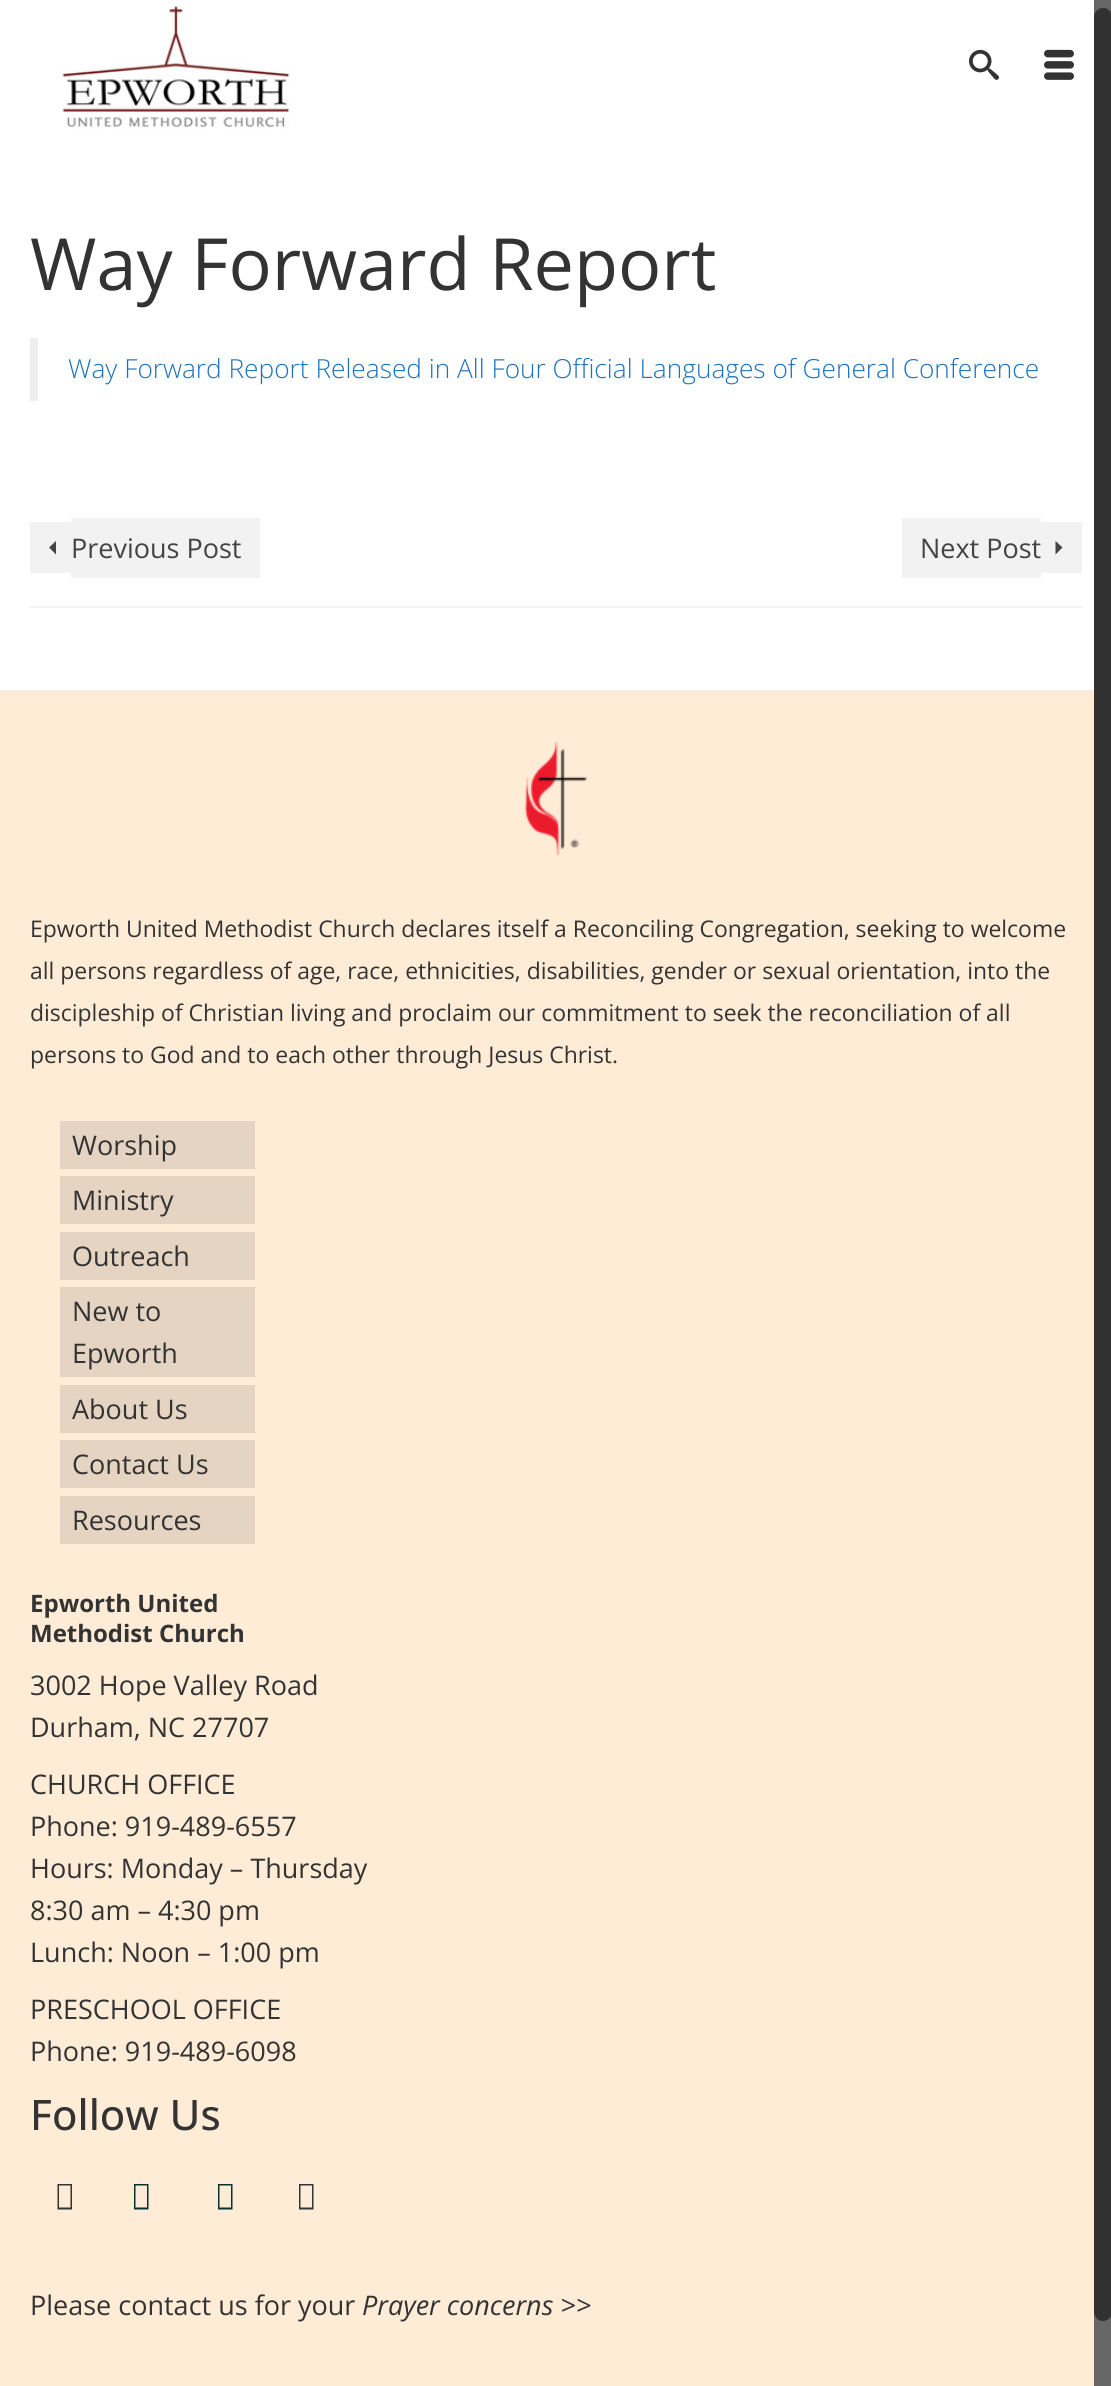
import math
import cairocffi as cairo

surface = cairo.ImageSurface(cairo.FORMAT_RGB24, 1111, 2386)
cr = cairo.Context(surface)
options = cairo.FontOptions()
options.set_hint_metrics(cairo.HINT_METRICS_OFF)
options.set_hint_style(cairo.HINT_STYLE_NONE)
cr.set_font_options(options)
cr.set_miter_limit(4)


def use_color(code):
    cr.set_source_rgb(*(v / 255 for v in bytes.fromhex(code[-6:])))


def round_rect(x, y, w, h, r):
    cr.new_sub_path()
    for i, (u, v) in enumerate([(x + w - r, y + h - r), (x + r, y + h - r), (x + r, y + r), (x + w - r, y + r)]):
        cr.arc(u, v, r, i * math.pi / 2, (i + 1) * math.pi / 2)
    cr.close_path()


def picture(path, x, y, w, h):
    cr.save()
    cr.set_source_surface(cairo.ImageSurface.create_from_png(path), x, y)
    cr.rectangle(x, y, w, h)
    cr.fill()
    cr.restore()


use_color("#ffffff")
cr.paint()
picture("img1.png", 58, 1, 233, 129)
picture("img2.png", 969, 49, 30, 31)
picture("img3.png", 1044, 49, 30, 31)
cr.select_font_face("Open Sans")
cr.set_font_size(72)
use_color("#333333")
cr.move_to(30, 290)
cr.show_text("Way Forward Report")
use_color("#eeeeee")
cr.rectangle(30, 338, 8, 63)
cr.fill()
cr.select_font_face("Open Sans Light")
cr.set_font_size(26.25)
use_color("#1e73be")
cr.move_to(68, 378)
cr.show_text("Way Forward Report Released in All Four Official Languages of General Conference")
use_color("#f2f2f2")
cr.rectangle(30, 606, 1052, 2)
cr.fill()
cr.rectangle(71, 518, 189, 60)
cr.fill()
cr.select_font_face("Open Sans")
cr.set_font_size(27)
use_color("#444444")
cr.move_to(71, 558)
cr.show_text("Previous Post")
use_color("#f2f2f2")
cr.rectangle(30, 522, 41, 51)
cr.fill()
use_color("#444444")
cr.new_path()
cr.move_to(56, 541)
cr.line_to(49, 547.5)
cr.line_to(56, 554.5)
cr.close_path()
cr.fill()
use_color("#f2f2f2")
cr.rectangle(902, 518, 139, 60)
cr.fill()
use_color("#444444")
cr.move_to(920, 558)
cr.show_text("Next Post")
use_color("#f2f2f2")
cr.rectangle(1041, 522, 41, 51)
cr.fill()
use_color("#444444")
cr.new_path()
cr.move_to(1055.5, 554.5)
cr.line_to(1062.5, 547.5)
cr.line_to(1055.5, 541)
cr.close_path()
cr.fill()
use_color("#ffecd7")
cr.rectangle(0, 690, 1094, 1696)
cr.fill()
picture("img4.png", 524, 741, 64, 115)
cr.set_font_size(22.95)
use_color("#333333")
cr.move_to(30, 937)
cr.show_text("Epworth United Methodist Church declares itself a Reconciling Congregation, seeking to welcome")
cr.move_to(30, 979)
cr.show_text("all persons regardless of age, race, ethnicities, disabilities, gender or sexual orientation, into the")
cr.move_to(30, 1021)
cr.show_text("discipleship of Christian living and proclaim our commitment to seek the reconciliation of all")
cr.move_to(30, 1063)
cr.show_text("persons to God and to each other through Jesus Christ.")
use_color("#e6d4c2")
cr.rectangle(60, 1121, 195, 48)
cr.fill()
cr.set_font_size(27)
use_color("#333333")
cr.move_to(72, 1155)
cr.show_text("Worship")
use_color("#e6d4c2")
cr.rectangle(60, 1176, 195, 48)
cr.fill()
use_color("#333333")
cr.move_to(72, 1210)
cr.show_text("Ministry")
use_color("#e6d4c2")
cr.rectangle(60, 1232, 195, 48)
cr.fill()
use_color("#333333")
cr.move_to(72, 1266)
cr.show_text("Outreach")
use_color("#e6d4c2")
cr.rectangle(60, 1287, 195, 90)
cr.fill()
use_color("#333333")
cr.move_to(72, 1321)
cr.show_text("New to")
cr.move_to(72, 1363)
cr.show_text("Epworth")
use_color("#e6d4c2")
cr.rectangle(60, 1385, 195, 48)
cr.fill()
use_color("#333333")
cr.move_to(72, 1419)
cr.show_text("About Us")
use_color("#e6d4c2")
cr.rectangle(60, 1440, 195, 48)
cr.fill()
use_color("#333333")
cr.move_to(72, 1474)
cr.show_text("Contact Us")
use_color("#e6d4c2")
cr.rectangle(60, 1496, 195, 48)
cr.fill()
use_color("#333333")
cr.move_to(72, 1530)
cr.show_text("Resources")
cr.select_font_face("Open Sans", cairo.FONT_SLANT_NORMAL, cairo.FONT_WEIGHT_BOLD)
cr.set_font_size(24)
cr.move_to(30, 1612)
cr.show_text("Epworth United")
cr.move_to(30, 1642)
cr.show_text("Methodist Church")
cr.select_font_face("Open Sans")
cr.set_font_size(27)
cr.move_to(30, 1695)
cr.show_text("3002 Hope Valley Road")
cr.move_to(30, 1737)
cr.show_text("Durham, NC 27707")
cr.move_to(30, 1794)
cr.show_text("CHURCH OFFICE")
cr.move_to(30, 1836)
cr.show_text("Phone: 919-489-6557")
cr.move_to(30, 1878)
cr.show_text("Hours: Monday – Thursday")
cr.move_to(30, 1920)
cr.show_text("8:30 am – 4:30 pm")
cr.move_to(30, 1962)
cr.show_text("Lunch: Noon – 1:00 pm")
cr.move_to(30, 2019)
cr.show_text("PRESCHOOL OFFICE")
cr.move_to(30, 2061)
cr.show_text("Phone: 919-489-6098")
cr.select_font_face("Open Sans Medium")
cr.set_font_size(42)
cr.move_to(30, 2130)
cr.show_text("Follow Us")
cr.new_path()
cr.move_to(57.5, 2209.5)
cr.line_to(57.5, 2184)
cr.line_to(72, 2184)
cr.line_to(72, 2209.5)
cr.close_path()
cr.move_to(59, 2207.5)
cr.line_to(70.5, 2207.5)
cr.line_to(70.5, 2185.5)
cr.line_to(59, 2185.5)
cr.close_path()
cr.fill()
use_color("#033333")
cr.new_path()
cr.move_to(134, 2209.5)
cr.line_to(134, 2184)
cr.line_to(148.5, 2184)
cr.line_to(148.5, 2209.5)
cr.close_path()
cr.move_to(135.5, 2207.5)
cr.line_to(147, 2207.5)
cr.line_to(147, 2185.5)
cr.line_to(135.5, 2185.5)
cr.close_path()
cr.fill()
cr.new_path()
cr.move_to(218, 2209.5)
cr.line_to(218, 2184)
cr.line_to(232.5, 2184)
cr.line_to(232.5, 2209.5)
cr.close_path()
cr.move_to(219.5, 2207.5)
cr.line_to(231, 2207.5)
cr.line_to(231, 2185.5)
cr.line_to(219.5, 2185.5)
cr.close_path()
cr.fill()
use_color("#333333")
cr.new_path()
cr.move_to(299, 2209.5)
cr.line_to(299, 2184)
cr.line_to(313.5, 2184)
cr.line_to(313.5, 2209.5)
cr.close_path()
cr.move_to(300.5, 2207.5)
cr.line_to(312, 2207.5)
cr.line_to(312, 2185.5)
cr.line_to(300.5, 2185.5)
cr.close_path()
cr.fill()
cr.select_font_face("Open Sans")
cr.set_font_size(27)
cr.move_to(30, 2315)
cr.show_text("Please contact us for your")
cr.select_font_face("Open Sans", cairo.FONT_SLANT_ITALIC)
cr.move_to(362, 2315)
cr.show_text("Prayer concerns >>")
use_color("#666666")
cr.rectangle(1094, 0, 17, 2386)
cr.fill()
use_color("#313131")
round_rect(1094, 8, 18, 2313, 9)
cr.fill()
surface.write_to_png("result.png")
